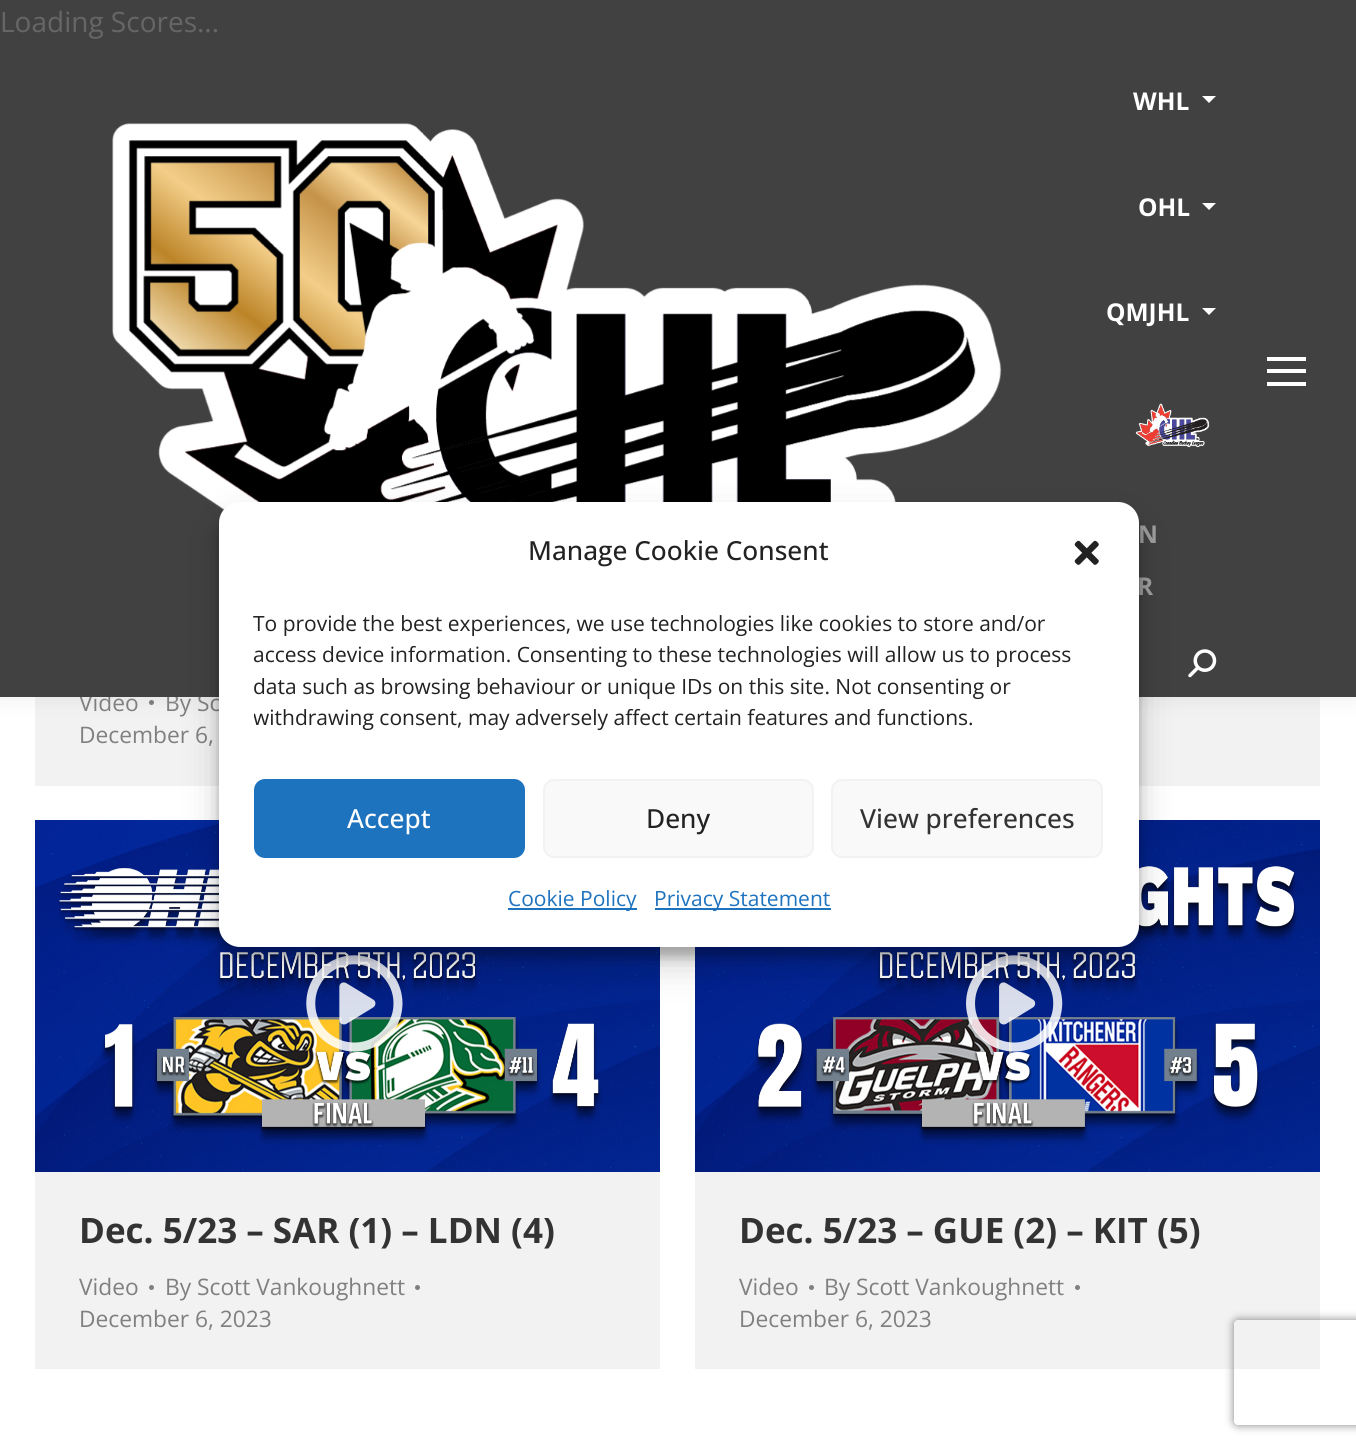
import math
import cairocffi as cairo

surface = cairo.ImageSurface(cairo.FORMAT_RGB24, 1356, 1449)
cr = cairo.Context(surface)
options = cairo.FontOptions()
options.set_hint_metrics(cairo.HINT_METRICS_OFF)
options.set_hint_style(cairo.HINT_STYLE_NONE)
cr.set_font_options(options)
cr.set_miter_limit(4)


def use_color(code):
    cr.set_source_rgb(*(v / 255 for v in bytes.fromhex(code[-6:])))


def round_rect(x, y, w, h, r):
    cr.new_sub_path()
    for i, (u, v) in enumerate([(x + w - r, y + h - r), (x + r, y + h - r), (x + r, y + r), (x + w - r, y + r)]):
        cr.arc(u, v, r, i * math.pi / 2, (i + 1) * math.pi / 2)
    cr.close_path()


def shadow(x, y, w, h, r, blur, alpha):
    cr.push_group_with_content(cairo.CONTENT_ALPHA)
    cr.set_operator(cairo.OPERATOR_SOURCE)
    for i in range(15, -16, -2):
        e = blur * i / 6
        if min(w, h) + 2 * e > 0:
            cr.set_source_rgba(0, 0, 0, alpha * math.erfc((i - 1) / 8.5) / 2)
            round_rect(x - e, y - e, w + 2 * e, h + 2 * e, max(0, min(r + e + blur * .6, min(w, h) / 2 + e)))
            cr.fill()
    cr.mask(cr.pop_group())


def picture(path, x, y, w, h):
    cr.save()
    cr.set_source_surface(cairo.ImageSurface.create_from_png(path), x, y)
    cr.rectangle(x, y, w, h)
    cr.fill()
    cr.restore()


use_color("#ffffff")
cr.paint()
use_color("#f2f2f2")
cr.rectangle(35, 697, 184, 89)
cr.fill()
use_color("#808080")
cr.arc(151.5, 702.5, 2.5, 0, 2 * math.pi)
cr.fill()
use_color("#f2f2f2")
cr.rectangle(1139, 697, 181, 89)
cr.fill()
use_color("#000000")
shadow(-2, -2, 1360, 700, 0, 13, 0.07)
cr.select_font_face("Open Sans")
cr.set_font_size(22.75)
use_color("#808080")
cr.move_to(79, 711)
cr.show_text("Video")
cr.move_to(165, 711)
cr.show_text("By Sc")
use_color("#414141")
cr.rectangle(0, 0, 1356, 697)
cr.fill()
cr.set_font_size(28)
use_color("#666666")
cr.move_to(0, 32)
cr.show_text("Loading Scores...")
picture("img1.png", 112, 123, 890, 387)
cr.select_font_face("Open Sans", cairo.FONT_SLANT_NORMAL, cairo.FONT_WEIGHT_BOLD)
cr.set_font_size(24.5)
use_color("#ffffff")
cr.move_to(1133, 110)
cr.show_text("WHL")
cr.new_path()
cr.move_to(1202, 96)
cr.line_to(1216, 96)
cr.line_to(1209, 103)
cr.close_path()
cr.fill()
cr.move_to(1138, 216)
cr.show_text("OHL")
cr.new_path()
cr.move_to(1202, 203)
cr.line_to(1216, 203)
cr.line_to(1209, 210)
cr.close_path()
cr.fill()
cr.move_to(1106, 321)
cr.show_text("QMJHL")
cr.new_path()
cr.move_to(1202, 308)
cr.line_to(1216, 308)
cr.line_to(1209, 315)
cr.close_path()
cr.fill()
picture("img2.png", 1135, 403, 75, 45)
use_color("#9e9e9e")
cr.move_to(1138, 543)
cr.show_text("N")
cr.move_to(1137, 595)
cr.show_text("R")
picture("img3.png", 1188, 649, 29, 29)
use_color("#ffffff")
cr.rectangle(1267, 357, 39, 4)
cr.fill()
cr.rectangle(1267, 369, 39, 4)
cr.fill()
cr.rectangle(1267, 382, 39, 4)
cr.fill()
cr.select_font_face("Open Sans")
cr.set_font_size(22.75)
use_color("#808080")
cr.move_to(79, 743)
cr.show_text("December 6,")
use_color("#f2f2f2")
cr.rectangle(35, 1172, 625, 197)
cr.fill()
picture("img4.png", 35, 820, 625, 352)
picture("img5.png", 306, 955, 97, 97)
cr.select_font_face("Open Sans", cairo.FONT_SLANT_NORMAL, cairo.FONT_WEIGHT_BOLD)
cr.set_font_size(35)
use_color("#333333")
cr.move_to(79, 1243)
cr.show_text("Dec. 5/23 – SAR (1) – LDN (4)")
cr.select_font_face("Open Sans")
cr.set_font_size(22.75)
use_color("#808080")
cr.move_to(79, 1295)
cr.show_text("Video")
cr.new_path()
cr.arc(151.5, 1287.5, 2.5, 0, 2 * math.pi)
cr.fill()
cr.move_to(165, 1295)
cr.show_text("By Scott Vankoughnett")
cr.new_path()
cr.arc(417.5, 1287.5, 2.5, 0, 2 * math.pi)
cr.fill()
cr.move_to(79, 1327)
cr.show_text("December 6, 2023")
use_color("#f2f2f2")
cr.rectangle(695, 1172, 625, 197)
cr.fill()
picture("img6.png", 695, 820, 625, 352)
picture("img7.png", 966, 955, 97, 97)
cr.select_font_face("Open Sans", cairo.FONT_SLANT_NORMAL, cairo.FONT_WEIGHT_BOLD)
cr.set_font_size(35)
use_color("#333333")
cr.move_to(739, 1243)
cr.show_text("Dec. 5/23 – GUE (2) – KIT (5)")
cr.select_font_face("Open Sans")
cr.set_font_size(22.75)
use_color("#808080")
cr.move_to(739, 1295)
cr.show_text("Video")
cr.new_path()
cr.arc(811.5, 1287.5, 2.5, 0, 2 * math.pi)
cr.fill()
cr.move_to(824, 1295)
cr.show_text("By Scott Vankoughnett")
cr.new_path()
cr.arc(1077.5, 1287.5, 2.5, 0, 2 * math.pi)
cr.fill()
cr.move_to(739, 1327)
cr.show_text("December 6, 2023")
use_color("#000000")
shadow(219, 513, 920, 444, 21, 5, 0.23)
shadow(219, 520, 920, 444, 21, 17.5, 0.19)
use_color("#ffffff")
round_rect(219, 502, 920, 445, 21)
cr.fill()
cr.select_font_face("Open Sans Medium")
cr.set_font_size(26.25)
use_color("#222222")
cr.move_to(528, 560)
cr.show_text("Manage Cookie Consent")
picture("img8.png", 1074, 540, 25, 25)
cr.select_font_face("Open Sans")
cr.set_font_size(21)
cr.move_to(253, 631)
cr.show_text("To provide the best experiences, we use technologies like cookies to store and/or")
cr.move_to(253, 662)
cr.show_text("access device information. Consenting to these technologies will allow us to process")
cr.move_to(253, 694)
cr.show_text("data such as browsing behaviour or unique IDs on this site. Not consenting or")
cr.save()
cr.rectangle(254, 609, 850, 135)
cr.clip()
cr.move_to(253, 725)
cr.show_text("withdrawing consent, may adversely affect certain features and functions.")
cr.restore()
use_color("#1e73be")
round_rect(255, 780, 269, 77, 10)
cr.fill_preserve()
cr.stroke()
cr.select_font_face("Open Sans Medium")
cr.set_font_size(26.25)
use_color("#ffffff")
cr.move_to(347, 828)
cr.show_text("Accept")
use_color("#f9f9f9")
round_rect(544, 780, 269, 77, 10)
cr.fill_preserve()
use_color("#f2f2f2")
cr.stroke()
use_color("#222222")
cr.move_to(646, 828)
cr.show_text("Deny")
use_color("#f9f9f9")
round_rect(832, 780, 270, 77, 10)
cr.fill_preserve()
use_color("#f2f2f2")
cr.stroke()
use_color("#333333")
cr.move_to(860, 828)
cr.show_text("View preferences")
use_color("#1e73be")
cr.rectangle(508, 908, 129, 2)
cr.fill()
cr.select_font_face("Open Sans")
cr.set_font_size(21)
cr.move_to(508, 906)
cr.show_text("Cookie Policy")
cr.rectangle(655, 908, 176, 2)
cr.fill()
cr.move_to(654, 906)
cr.show_text("Privacy Statement")
cr.save()
cr.set_fill_rule(cairo.FILL_RULE_EVEN_ODD)
cr.new_path()
cr.move_to(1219, 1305)
cr.line_to(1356, 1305)
cr.line_to(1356, 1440)
cr.line_to(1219, 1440)
cr.close_path()
cr.move_to(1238, 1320)
cr.line_to(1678, 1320)
cr.curve_to(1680, 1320, 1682, 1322, 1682, 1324)
cr.line_to(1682, 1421)
cr.curve_to(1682, 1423, 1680, 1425, 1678, 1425)
cr.line_to(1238, 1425)
cr.curve_to(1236, 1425, 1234, 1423, 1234, 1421)
cr.line_to(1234, 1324)
cr.curve_to(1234, 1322, 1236, 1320, 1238, 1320)
cr.close_path()
cr.clip()
use_color("#808080")
shadow(1234, 1320, 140, 105, 4, 4.5, 1)
cr.restore()
surface.write_to_png("result.png")
